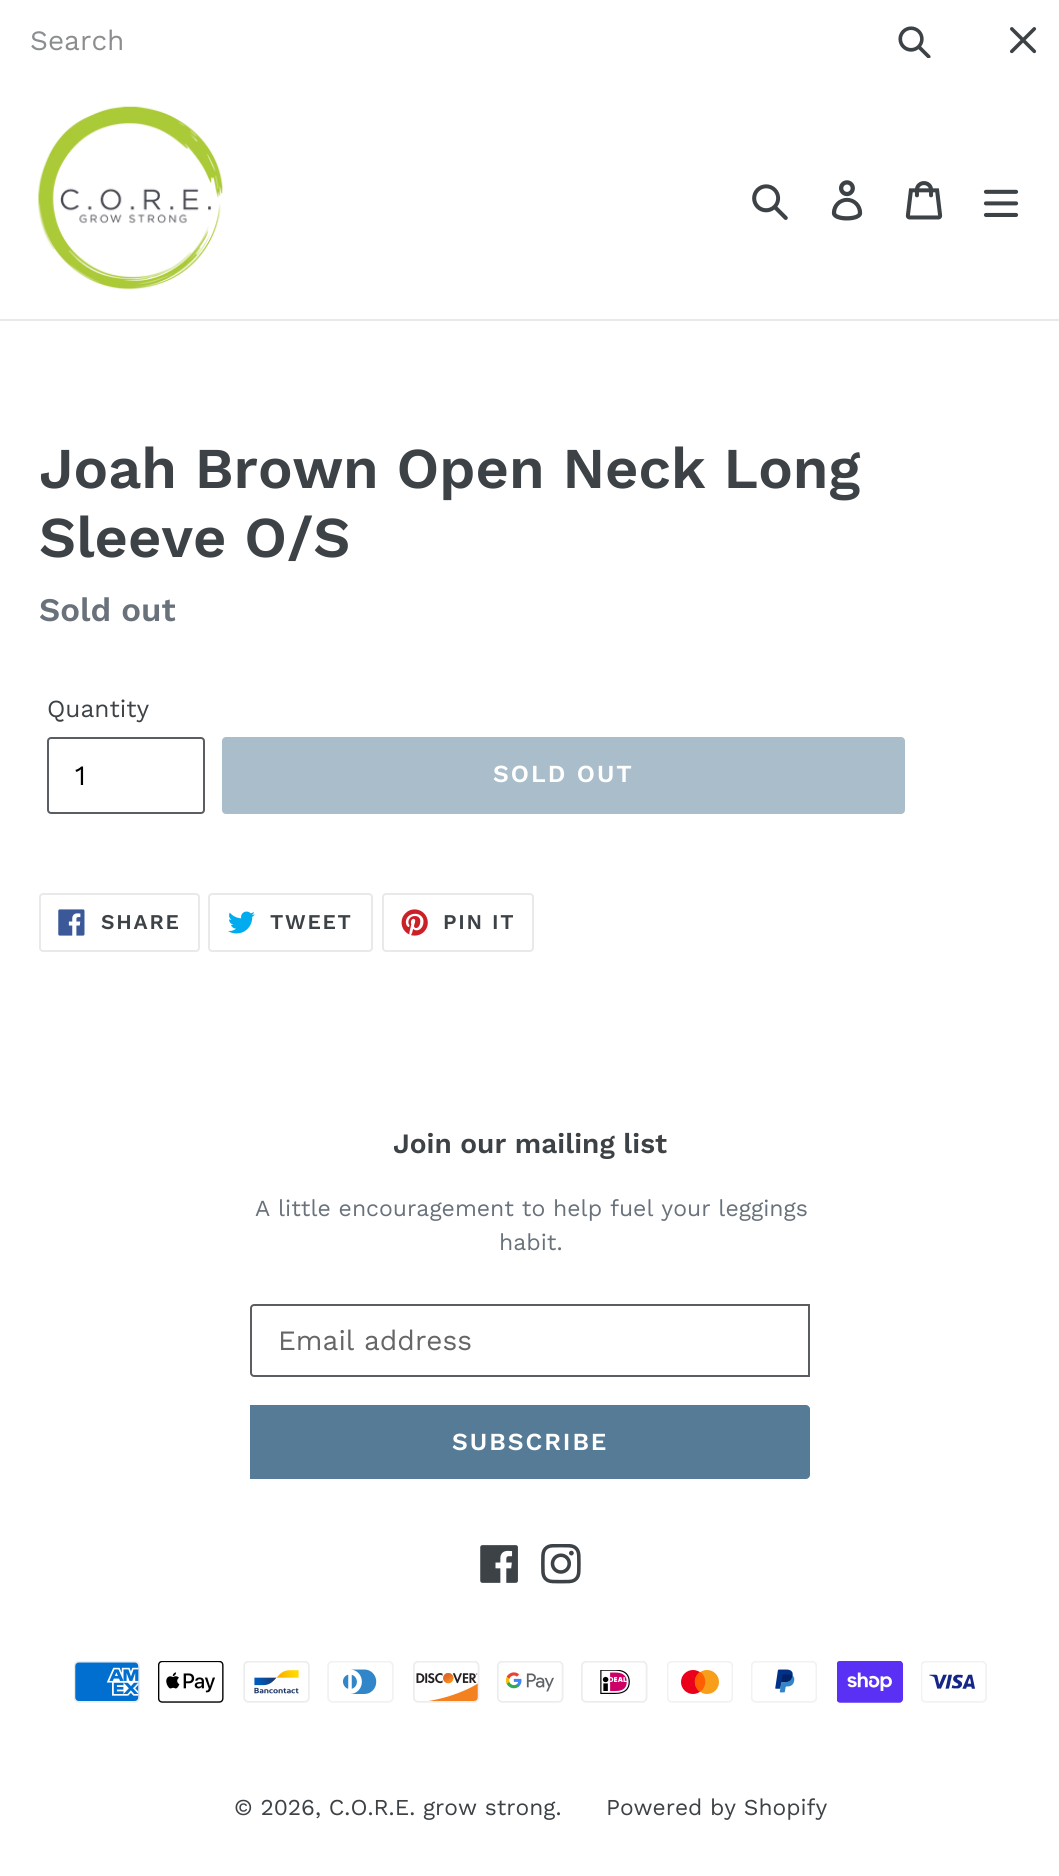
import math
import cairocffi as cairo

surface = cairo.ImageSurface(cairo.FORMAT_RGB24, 1059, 1876)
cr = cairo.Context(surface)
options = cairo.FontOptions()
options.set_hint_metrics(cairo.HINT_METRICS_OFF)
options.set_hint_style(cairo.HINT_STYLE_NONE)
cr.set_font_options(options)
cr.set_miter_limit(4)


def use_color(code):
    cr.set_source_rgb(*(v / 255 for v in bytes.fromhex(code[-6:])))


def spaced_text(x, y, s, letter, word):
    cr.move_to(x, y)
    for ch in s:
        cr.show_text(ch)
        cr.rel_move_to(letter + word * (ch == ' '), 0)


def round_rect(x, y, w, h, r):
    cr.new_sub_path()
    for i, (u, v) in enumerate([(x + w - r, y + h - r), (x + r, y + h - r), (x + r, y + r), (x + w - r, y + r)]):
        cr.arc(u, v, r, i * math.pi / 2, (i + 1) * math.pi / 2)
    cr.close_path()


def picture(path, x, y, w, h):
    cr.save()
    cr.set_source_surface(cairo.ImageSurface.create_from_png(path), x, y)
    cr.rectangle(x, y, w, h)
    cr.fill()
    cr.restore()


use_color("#ffffff")
cr.paint()
cr.select_font_face("Work Sans")
cr.set_font_size(28)
use_color("#8b8e90")
cr.move_to(30, 50)
cr.show_text("Search")
picture("img1.png", 898, 26, 33, 32)
picture("img2.png", 1010, 27, 27, 27)
use_color("#e8e9eb")
cr.rectangle(0, 319, 1059, 2)
cr.fill()
picture("img3.png", 38, 106, 185, 184)
picture("img4.png", 752, 184, 36, 36)
picture("img5.png", 831, 180, 32, 41)
picture("img6.png", 905, 181, 38, 39)
picture("img7.png", 983, 189, 36, 28)
cr.select_font_face("Work Sans SemiBold")
cr.set_font_size(57.75)
use_color("#3d4246")
cr.move_to(39, 488)
cr.show_text("Joah Brown Open Neck Long")
cr.move_to(39, 557)
cr.show_text("Sleeve O/S")
cr.set_font_size(33)
use_color("#69727b")
cr.move_to(39, 621)
cr.show_text("Sold out")
cr.select_font_face("Work Sans")
cr.set_font_size(24.5)
use_color("#3d4246")
cr.move_to(47, 717)
cr.show_text("Quantity")
round_rect(48, 738, 156, 75, 3)
use_color("#5a5e62")
cr.stroke()
cr.set_font_size(28)
use_color("#000000")
cr.move_to(75, 785)
cr.show_text("1")
use_color("#aabdcb")
round_rect(222, 737, 683, 77, 4)
cr.fill()
cr.select_font_face("Work Sans SemiBold")
cr.set_font_size(24.5)
use_color("#ffffff")
spaced_text(493, 782, "SOLD OUT", 2, 0)
round_rect(40, 894, 159, 57, 3)
use_color("#e8e9eb")
cr.stroke()
picture("img8.png", 58, 909, 27, 27)
cr.set_font_size(21)
use_color("#3d4246")
spaced_text(101, 929, "SHARE", 1.75, 0)
round_rect(209, 894, 163, 57, 3)
use_color("#e8e9eb")
cr.stroke()
picture("img9.png", 228, 911, 27, 23)
use_color("#3d4246")
spaced_text(270, 929, "TWEET", 1.75, 0)
round_rect(383, 894, 150, 57, 3)
use_color("#e8e9eb")
cr.stroke()
picture("img10.png", 401, 909, 27, 27)
use_color("#3d4246")
spaced_text(443, 929, "PIN IT", 1.75, 0)
cr.set_font_size(28)
cr.move_to(393, 1153)
cr.show_text("Join our mailing list")
cr.select_font_face("Work Sans")
cr.set_font_size(23)
use_color("#69727b")
cr.move_to(255, 1216)
cr.show_text("A little encouragement to help fuel your leggings")
cr.move_to(499, 1250)
cr.show_text("habit.")
cr.new_path()
cr.move_to(254, 1305)
cr.line_to(809, 1305)
cr.line_to(809, 1376)
cr.line_to(254, 1376)
cr.curve_to(252.5, 1376, 251, 1374.5, 251, 1373)
cr.line_to(251, 1308)
cr.curve_to(251, 1306.5, 252.5, 1305, 254, 1305)
cr.close_path()
use_color("#5a5e62")
cr.stroke()
cr.set_font_size(28)
use_color("#666666")
cr.move_to(278, 1350)
cr.show_text("Email address")
use_color("#557b97")
cr.new_path()
cr.move_to(250, 1405)
cr.line_to(806, 1405)
cr.curve_to(808, 1405, 810, 1407, 810, 1409)
cr.line_to(810, 1475)
cr.curve_to(810, 1477, 808, 1479, 806, 1479)
cr.line_to(250, 1479)
cr.close_path()
cr.fill()
cr.select_font_face("Work Sans SemiBold")
cr.set_font_size(24.5)
use_color("#ffffff")
spaced_text(452, 1450, "SUBSCRIBE", 2, 0)
picture("img11.png", 480, 1545, 38, 38)
picture("img12.png", 541, 1544, 40, 40)
picture("img13.png", 74, 1661, 66, 42)
picture("img14.png", 158, 1661, 66, 42)
picture("img15.png", 243, 1661, 67, 42)
picture("img16.png", 327, 1661, 67, 42)
picture("img17.png", 413, 1661, 67, 42)
picture("img18.png", 497, 1661, 67, 42)
picture("img19.png", 581, 1661, 67, 42)
picture("img20.png", 667, 1661, 66, 42)
picture("img21.png", 751, 1661, 66, 42)
picture("img22.png", 837, 1661, 66, 42)
picture("img23.png", 921, 1661, 66, 42)
cr.select_font_face("Work Sans")
cr.set_font_size(22.75)
use_color("#3d4246")
cr.move_to(234, 1815)
cr.show_text("© 2026, C.O.R.E. grow strong.")
cr.move_to(606, 1815)
cr.show_text("Powered by Shopify")
surface.write_to_png("result.png")
